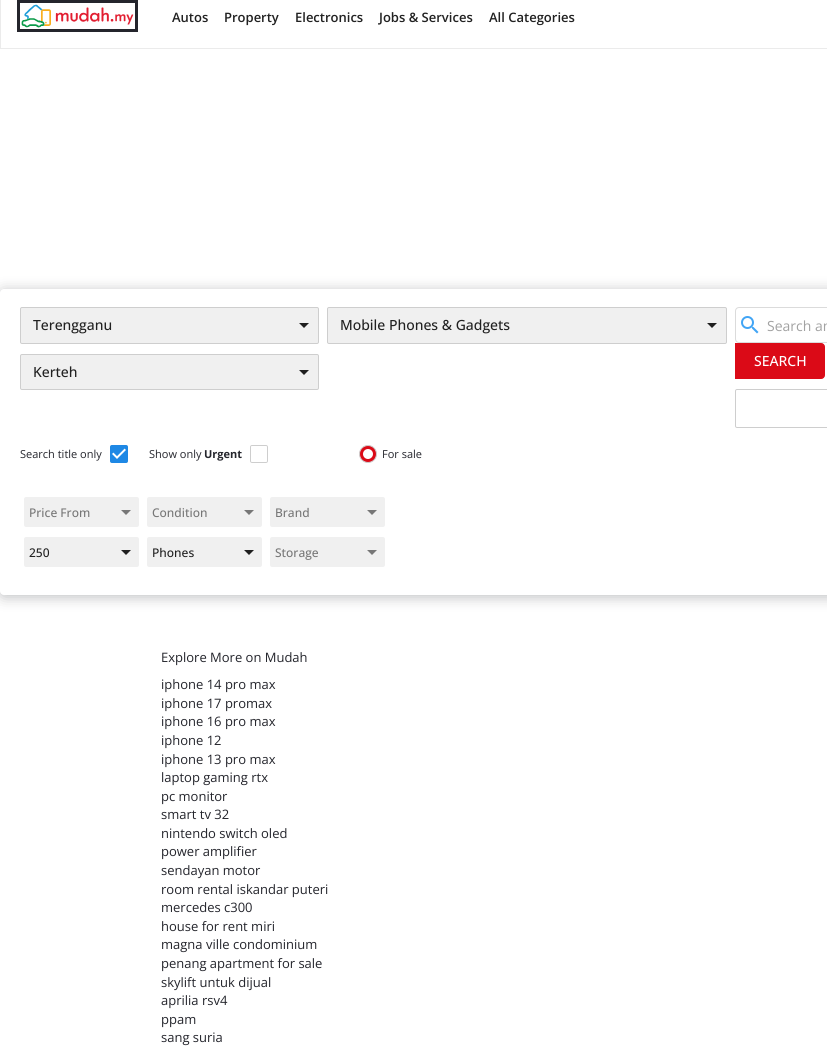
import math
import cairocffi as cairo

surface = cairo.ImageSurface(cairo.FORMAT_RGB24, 827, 1060)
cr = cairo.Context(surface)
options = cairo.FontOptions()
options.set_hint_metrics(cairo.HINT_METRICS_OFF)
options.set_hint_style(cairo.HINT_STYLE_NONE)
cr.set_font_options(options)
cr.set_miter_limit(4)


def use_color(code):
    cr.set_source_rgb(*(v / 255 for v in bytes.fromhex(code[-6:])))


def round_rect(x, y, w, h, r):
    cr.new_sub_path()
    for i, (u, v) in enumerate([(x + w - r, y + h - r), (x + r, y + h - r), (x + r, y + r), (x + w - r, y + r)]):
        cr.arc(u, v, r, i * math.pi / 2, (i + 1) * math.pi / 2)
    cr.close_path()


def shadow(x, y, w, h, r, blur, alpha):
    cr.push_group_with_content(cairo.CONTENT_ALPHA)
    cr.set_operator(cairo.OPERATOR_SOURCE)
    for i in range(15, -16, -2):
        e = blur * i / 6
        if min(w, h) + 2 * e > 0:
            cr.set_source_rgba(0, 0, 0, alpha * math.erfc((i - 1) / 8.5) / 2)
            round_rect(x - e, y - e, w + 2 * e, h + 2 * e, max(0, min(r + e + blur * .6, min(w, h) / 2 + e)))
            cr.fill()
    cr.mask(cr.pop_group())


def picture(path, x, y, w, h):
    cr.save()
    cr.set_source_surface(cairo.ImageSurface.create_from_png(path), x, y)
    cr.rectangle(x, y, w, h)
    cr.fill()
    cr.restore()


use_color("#ffffff")
cr.paint()
cr.rectangle(0.5, -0.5, 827, 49)
use_color("#ebebeb")
cr.set_line_width(1)
cr.stroke()
cr.rectangle(18.5, 1.5, 118, 29)
use_color("#24252c")
cr.set_line_width(3)
cr.stroke()
picture("img1.png", 21, 4, 113, 24)
cr.select_font_face("Open Sans SemiBold")
cr.set_font_size(13)
use_color("#212121")
cr.move_to(172, 22)
cr.show_text("Autos")
cr.move_to(224, 22)
cr.show_text("Property")
cr.move_to(295, 22)
cr.show_text("Electronics")
cr.move_to(379, 22)
cr.show_text("Jobs & Services")
cr.move_to(489, 22)
cr.show_text("All Categories")
use_color("#24252c")
shadow(0, 291, 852, 306, 4, 7, 0.3)
use_color("#ffffff")
round_rect(0, 289, 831, 306, 4)
cr.fill()
use_color("#f0f0f0")
round_rect(20.5, 307.5, 298, 36, 1.5)
cr.fill_preserve()
use_color("#cecece")
cr.set_line_width(1)
cr.stroke()
cr.select_font_face("Open Sans Medium")
cr.set_font_size(14)
use_color("#212121")
cr.move_to(33, 330)
cr.show_text("Terengganu")
use_color("#1f1f1f")
cr.new_path()
cr.move_to(299, 323)
cr.line_to(304, 328)
cr.line_to(309, 323)
cr.close_path()
cr.fill()
use_color("#f0f0f0")
round_rect(20.5, 354.5, 298, 35, 1.5)
cr.fill_preserve()
use_color("#cecece")
cr.stroke()
use_color("#212121")
cr.move_to(33, 377)
cr.show_text("Kerteh")
use_color("#1f1f1f")
cr.new_path()
cr.move_to(299, 370)
cr.line_to(304, 375)
cr.line_to(309, 370)
cr.close_path()
cr.fill()
use_color("#f0f0f0")
round_rect(327.5, 307.5, 399, 36, 1.5)
cr.fill_preserve()
use_color("#cecece")
cr.stroke()
use_color("#212121")
cr.move_to(340, 330)
cr.show_text("Mobile Phones & Gadgets")
use_color("#1f1f1f")
cr.new_path()
cr.move_to(707, 323)
cr.line_to(712, 328)
cr.line_to(717, 323)
cr.close_path()
cr.fill()
cr.new_path()
cr.move_to(739, 307.5)
cr.line_to(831.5, 307.5)
cr.line_to(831.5, 342.5)
cr.line_to(739, 342.5)
cr.curve_to(737, 342.5, 735.5, 341, 735.5, 339)
cr.line_to(735.5, 311)
cr.curve_to(735.5, 309, 737, 307.5, 739, 307.5)
cr.close_path()
use_color("#dbdbdb")
cr.stroke()
picture("img2.png", 741, 316, 18, 18)
cr.select_font_face("Open Sans")
use_color("#a2a2a2")
cr.move_to(767, 331)
cr.show_text("Search an")
use_color("#db0a17")
cr.new_path()
cr.move_to(735.5, 343.5)
cr.line_to(821, 343.5)
cr.curve_to(823, 343.5, 824.5, 345, 824.5, 347)
cr.line_to(824.5, 375)
cr.curve_to(824.5, 377, 823, 378.5, 821, 378.5)
cr.line_to(735.5, 378.5)
cr.close_path()
cr.fill_preserve()
cr.stroke()
cr.select_font_face("Open Sans Medium")
use_color("#ffffff")
cr.move_to(754, 366)
cr.show_text("SEARCH")
round_rect(735.5, 389.5, 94, 38, 1.5)
use_color("#cecece")
cr.stroke()
cr.select_font_face("Open Sans")
cr.set_font_size(11)
use_color("#24252c")
cr.move_to(20, 458)
cr.show_text("Search title only")
round_rect(110.5, 445.5, 17, 17, 1.5)
use_color("#cecece")
cr.stroke()
picture("img3.png", 110, 445, 18, 18)
use_color("#24252c")
cr.move_to(149, 458)
cr.show_text("Show only")
cr.select_font_face("Open Sans", cairo.FONT_SLANT_NORMAL, cairo.FONT_WEIGHT_BOLD)
cr.move_to(204, 458)
cr.show_text("Urgent")
round_rect(250.5, 445.5, 17, 17, 1.5)
use_color("#cecece")
cr.stroke()
use_color("#ffffff")
round_rect(251, 446, 16, 16, 2)
cr.fill()
use_color("#db0a17")
cr.arc(368, 454, 8.5, 0, 2 * math.pi)
cr.fill_preserve()
use_color("#cecece")
cr.stroke()
picture("img4.png", 363, 449, 10, 10)
cr.select_font_face("Open Sans")
use_color("#24252c")
cr.move_to(382, 458)
cr.show_text("For sale")
use_color("#f0f0f0")
round_rect(24, 497, 115, 30, 2)
cr.fill()
cr.select_font_face("Open Sans Medium")
cr.set_font_size(12)
use_color("#777777")
cr.move_to(29, 517)
cr.show_text("Price From")
cr.new_path()
cr.move_to(121, 510)
cr.line_to(126, 515)
cr.line_to(131, 510)
cr.close_path()
cr.fill()
use_color("#f0f0f0")
round_rect(24, 537, 115, 30, 2)
cr.fill()
use_color("#212121")
cr.move_to(29, 557)
cr.show_text("250")
use_color("#1f1f1f")
cr.new_path()
cr.move_to(121, 550)
cr.line_to(126, 555)
cr.line_to(131, 550)
cr.close_path()
cr.fill()
use_color("#f0f0f0")
round_rect(147, 497, 115, 30, 2)
cr.fill()
use_color("#777777")
cr.move_to(152, 517)
cr.show_text("Condition")
cr.new_path()
cr.move_to(244, 510)
cr.line_to(249, 515)
cr.line_to(254, 510)
cr.close_path()
cr.fill()
use_color("#f0f0f0")
round_rect(147, 537, 115, 30, 2)
cr.fill()
use_color("#212121")
cr.move_to(152, 557)
cr.show_text("Phones")
use_color("#1f1f1f")
cr.new_path()
cr.move_to(244, 550)
cr.line_to(249, 555)
cr.line_to(254, 550)
cr.close_path()
cr.fill()
use_color("#f0f0f0")
round_rect(270, 497, 115, 30, 2)
cr.fill()
use_color("#777777")
cr.move_to(275, 517)
cr.show_text("Brand")
cr.new_path()
cr.move_to(367, 510)
cr.line_to(372, 515)
cr.line_to(377, 510)
cr.close_path()
cr.fill()
use_color("#f0f0f0")
round_rect(270, 537, 115, 30, 2)
cr.fill()
use_color("#777777")
cr.move_to(275, 557)
cr.show_text("Storage")
cr.new_path()
cr.move_to(367, 550)
cr.line_to(372, 555)
cr.line_to(377, 550)
cr.close_path()
cr.fill()
cr.select_font_face("Open Sans")
cr.set_font_size(13)
use_color("#24252c")
cr.move_to(161, 662)
cr.show_text("Explore More on Mudah")
cr.move_to(161, 689)
cr.show_text("iphone 14 pro max")
cr.move_to(161, 708)
cr.show_text("iphone 17 promax")
cr.move_to(161, 726)
cr.show_text("iphone 16 pro max")
cr.move_to(161, 745)
cr.show_text("iphone 12")
cr.move_to(161, 764)
cr.show_text("iphone 13 pro max")
cr.move_to(161, 782)
cr.show_text("laptop gaming rtx")
cr.move_to(161, 801)
cr.show_text("pc monitor")
cr.move_to(161, 819)
cr.show_text("smart tv 32")
cr.move_to(161, 838)
cr.show_text("nintendo switch oled")
cr.move_to(161, 856)
cr.show_text("power amplifier")
cr.move_to(161, 875)
cr.show_text("sendayan motor")
cr.move_to(161, 894)
cr.show_text("room rental iskandar puteri")
cr.move_to(161, 912)
cr.show_text("mercedes c300")
cr.move_to(161, 931)
cr.show_text("house for rent miri")
cr.move_to(161, 949)
cr.show_text("magna ville condominium")
cr.move_to(161, 968)
cr.show_text("penang apartment for sale")
cr.move_to(161, 987)
cr.show_text("skylift untuk dijual")
cr.move_to(161, 1005)
cr.show_text("aprilia rsv4")
cr.move_to(161, 1024)
cr.show_text("ppam")
cr.move_to(161, 1042)
cr.show_text("sang suria")
surface.write_to_png("result.png")
